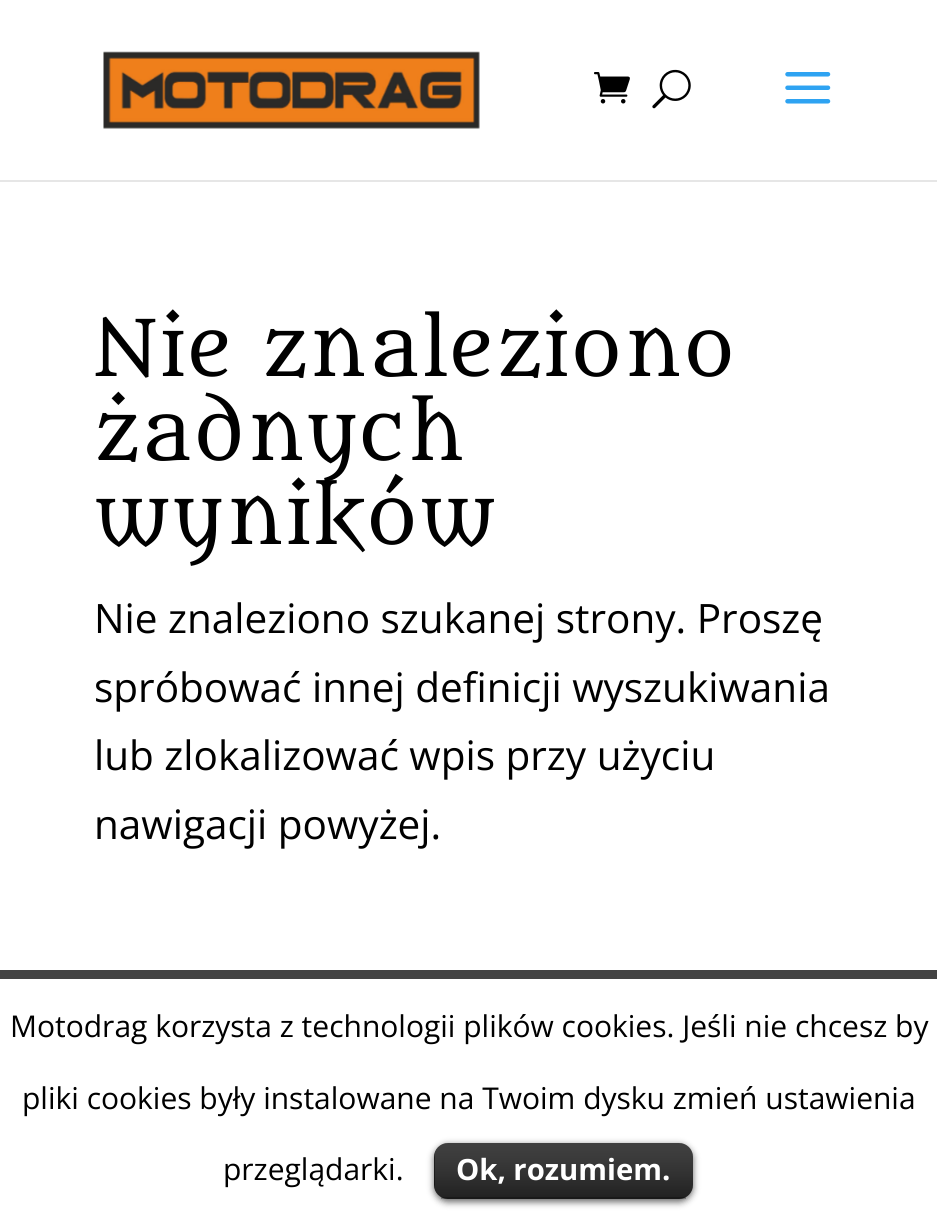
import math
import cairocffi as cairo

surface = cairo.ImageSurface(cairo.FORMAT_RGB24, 937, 1215)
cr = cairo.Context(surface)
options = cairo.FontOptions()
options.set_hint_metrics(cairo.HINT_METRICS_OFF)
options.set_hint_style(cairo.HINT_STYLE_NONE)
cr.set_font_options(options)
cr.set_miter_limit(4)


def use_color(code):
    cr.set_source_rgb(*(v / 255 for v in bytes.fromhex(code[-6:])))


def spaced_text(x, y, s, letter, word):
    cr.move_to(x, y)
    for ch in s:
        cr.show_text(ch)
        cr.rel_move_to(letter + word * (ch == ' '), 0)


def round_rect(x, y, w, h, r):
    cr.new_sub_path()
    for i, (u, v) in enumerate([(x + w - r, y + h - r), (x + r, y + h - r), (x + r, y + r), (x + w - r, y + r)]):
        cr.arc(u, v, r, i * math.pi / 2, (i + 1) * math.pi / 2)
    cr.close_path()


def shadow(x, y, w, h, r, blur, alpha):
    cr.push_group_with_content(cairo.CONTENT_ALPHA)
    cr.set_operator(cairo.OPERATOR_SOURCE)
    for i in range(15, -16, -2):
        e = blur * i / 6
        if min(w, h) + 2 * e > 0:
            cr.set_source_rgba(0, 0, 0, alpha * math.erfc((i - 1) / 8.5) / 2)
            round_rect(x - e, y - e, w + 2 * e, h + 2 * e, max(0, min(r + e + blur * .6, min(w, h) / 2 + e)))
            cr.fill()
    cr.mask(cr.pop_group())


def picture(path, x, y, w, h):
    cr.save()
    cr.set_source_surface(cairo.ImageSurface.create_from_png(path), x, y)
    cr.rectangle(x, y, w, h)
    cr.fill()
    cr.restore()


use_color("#ffffff")
cr.paint()
use_color("#e6e6e6")
cr.rectangle(0, 180, 937, 2)
cr.fill()
picture("img1.png", 103, 51, 377, 78)
picture("img2.png", 594, 72, 36, 32)
picture("img3.png", 652, 69, 39, 40)
picture("img4.png", 785, 72, 46, 32)
cr.select_font_face("Metamorphous")
cr.set_font_size(76.5)
use_color("#000000")
spaced_text(94, 376, "Nie znaleziono", 2.25, 0)
spaced_text(94, 460, "żadnych", 2.25, 0)
spaced_text(94, 544, "wyników", 2.25, 0)
cr.select_font_face("Open Sans")
cr.set_font_size(40.5)
cr.move_to(94, 633)
cr.show_text("Nie znaleziono szukanej strony. Proszę")
cr.move_to(94, 702)
cr.show_text("spróbować innej definicji wyszukiwania")
cr.move_to(94, 770)
cr.show_text("lub zlokalizować wpis przy użyciu")
cr.move_to(94, 839)
cr.show_text("nawigacji powyżej.")
use_color("#444444")
cr.rectangle(0, 970, 937, 9)
cr.fill()
cr.set_font_size(30)
use_color("#000000")
cr.move_to(10, 1037)
cr.show_text("Motodrag korzysta z technologii plików cookies. Jeśli nie chcesz by")
cr.move_to(22, 1109)
cr.show_text("pliki cookies były instalowane na Twoim dysku zmień ustawienia")
cr.move_to(223, 1180)
cr.show_text("przeglądarki.")
use_color("#000000")
shadow(434, 1145, 259, 57, 14, 3.5, 0.6)
use_color("#000000")
round_rect(434, 1143, 259, 56, 14)
cr.fill()
picture("img5.png", 434, 1143, 259, 56)
cr.set_source_rgba(0, 0, 0, 0.25)
cr.rectangle(441, 1197, 245, 2)
cr.fill()
cr.select_font_face("Open Sans", cairo.FONT_SLANT_NORMAL, cairo.FONT_WEIGHT_BOLD)
cr.set_font_size(29.25)
use_color("#ffffff")
cr.move_to(456, 1180)
cr.show_text("Ok, rozumiem.")
surface.write_to_png("result.png")
